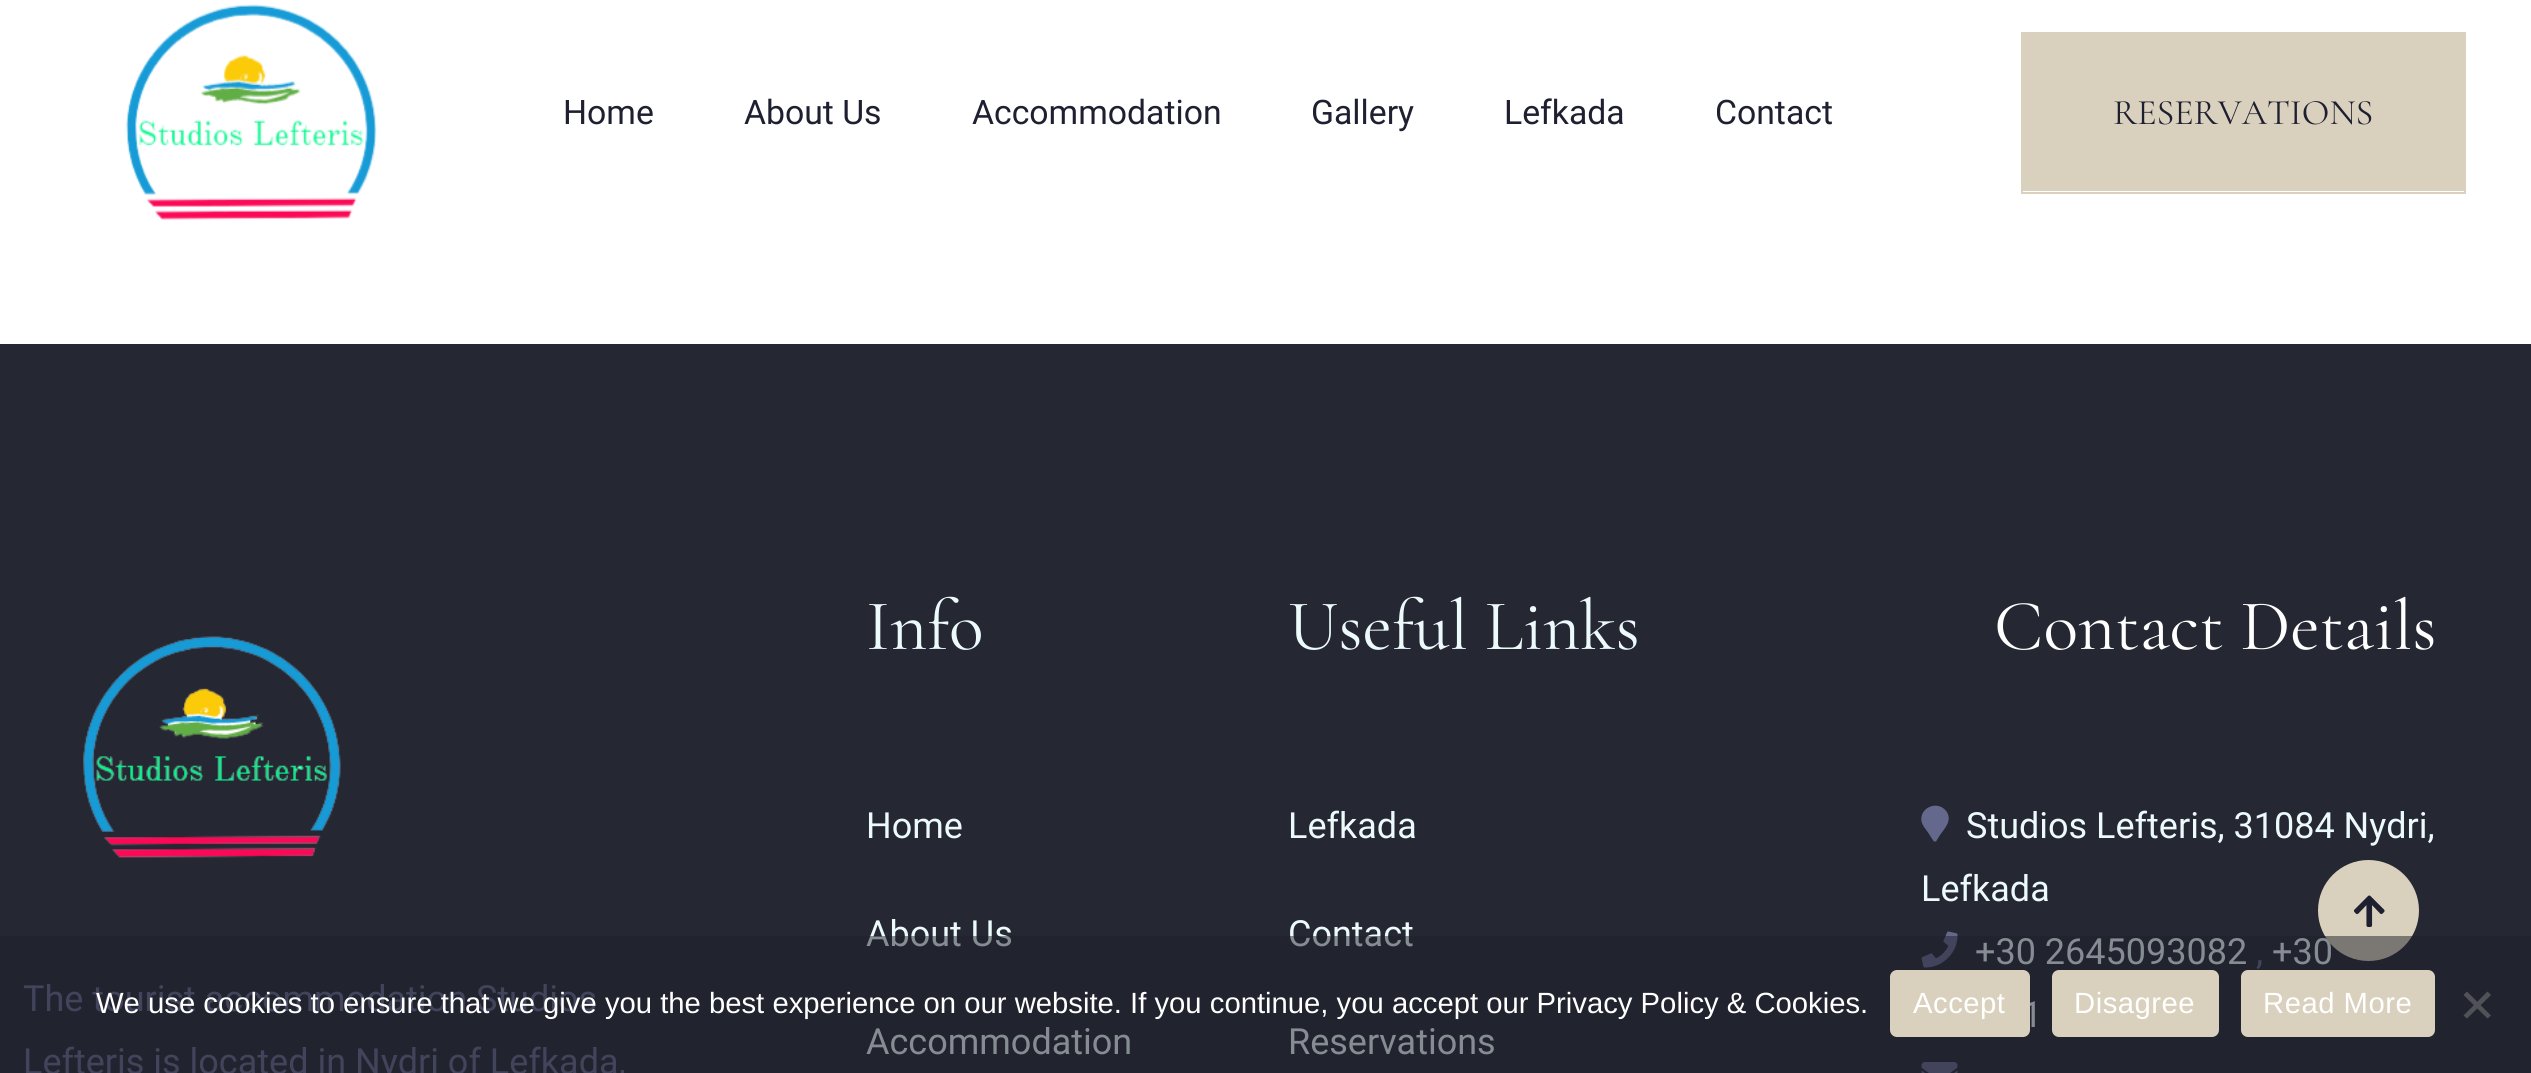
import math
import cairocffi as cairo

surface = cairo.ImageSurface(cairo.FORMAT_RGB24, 2531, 1073)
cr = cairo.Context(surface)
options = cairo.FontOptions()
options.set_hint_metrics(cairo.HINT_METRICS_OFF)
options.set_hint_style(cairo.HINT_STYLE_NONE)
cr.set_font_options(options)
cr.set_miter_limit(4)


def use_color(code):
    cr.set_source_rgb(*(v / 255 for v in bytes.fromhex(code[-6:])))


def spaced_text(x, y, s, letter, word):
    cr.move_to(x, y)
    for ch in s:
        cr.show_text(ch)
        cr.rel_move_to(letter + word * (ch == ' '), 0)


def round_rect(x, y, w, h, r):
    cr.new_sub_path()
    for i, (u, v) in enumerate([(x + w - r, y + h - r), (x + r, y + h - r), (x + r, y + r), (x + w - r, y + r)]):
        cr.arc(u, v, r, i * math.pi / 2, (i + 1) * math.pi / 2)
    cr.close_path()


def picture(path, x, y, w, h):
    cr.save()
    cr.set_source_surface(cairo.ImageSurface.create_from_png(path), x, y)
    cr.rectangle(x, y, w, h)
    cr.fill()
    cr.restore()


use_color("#ffffff")
cr.paint()
picture("img1.png", 126, 4, 251, 216)
cr.select_font_face("Roboto")
cr.set_font_size(33.75)
use_color("#1e2031")
cr.move_to(563, 124)
cr.show_text("Home")
cr.move_to(744, 124)
cr.show_text("About Us")
cr.move_to(972, 124)
cr.show_text("Accommodation")
cr.move_to(1311, 124)
cr.show_text("Gallery")
cr.move_to(1504, 124)
cr.show_text("Lefkada")
cr.move_to(1715, 124)
cr.show_text("Contact")
cr.rectangle(2022, 33, 443, 160)
use_color("#d9d0bd")
cr.stroke()
cr.rectangle(2023, 34, 441, 157)
cr.fill()
cr.select_font_face("Cormorant Garamond")
cr.set_font_size(36)
use_color("#1e2031")
cr.move_to(2113, 124)
cr.show_text("RESERVATIONS")
use_color("#252733")
cr.rectangle(0, 344, 2531, 729)
cr.fill()
picture("img2.png", 83, 636, 258, 222)
cr.select_font_face("Roboto")
use_color("#64688c")
cr.move_to(23, 1011)
cr.show_text("The tourist accommodation Studios")
cr.move_to(23, 1074)
cr.show_text("Lefteris is located in Nydri of Lefkada,")
cr.select_font_face("Cormorant Garamond")
cr.set_font_size(72)
use_color("#ecfafb")
cr.move_to(866, 649)
cr.show_text("Info")
cr.select_font_face("Roboto")
cr.set_font_size(36)
cr.move_to(866, 838)
cr.show_text("Home")
cr.move_to(866, 946)
cr.show_text("About Us")
cr.move_to(866, 1054)
cr.show_text("Accommodation")
cr.select_font_face("Cormorant Garamond")
cr.set_font_size(72)
cr.move_to(1288, 649)
cr.show_text("Useful Links")
cr.select_font_face("Roboto")
cr.set_font_size(36)
cr.move_to(1288, 838)
cr.show_text("Lefkada")
cr.move_to(1288, 946)
cr.show_text("Contact")
cr.move_to(1288, 1054)
cr.show_text("Reservations")
cr.select_font_face("Cormorant Garamond")
cr.set_font_size(72)
use_color("#ffffff")
cr.move_to(1994, 649)
cr.show_text("Contact Details")
use_color("#64688c")
cr.new_path()
cr.move_to(1933.5, 841)
cr.line_to(1928, 832.5)
cr.curve_to(1925.5, 829, 1922.5, 825.5, 1921.5, 821.5)
cr.curve_to(1919, 807.5, 1938, 799.5, 1946.5, 811.5)
cr.curve_to(1952.5, 820.5, 1945, 828, 1940, 835)
cr.line_to(1936, 841.5)
cr.curve_to(1935, 841.5, 1934, 841.5, 1933.5, 841)
cr.close_path()
cr.fill()
cr.select_font_face("Roboto")
cr.set_font_size(36)
use_color("#ecfafb")
cr.move_to(1966, 838)
cr.show_text("Studios Lefteris, 31084 Nydri,")
cr.move_to(1921, 901)
cr.show_text("Lefkada")
picture("img3.png", 1921, 931, 37, 37)
cr.move_to(1975, 964)
cr.show_text("+30 2645093082")
use_color("#64688c")
cr.move_to(2256, 964)
cr.show_text(",")
use_color("#ecfafb")
cr.move_to(2272, 964)
cr.show_text("+30")
cr.move_to(2022, 1027)
cr.show_text("1")
picture("img4.png", 1921, 1062, 37, 11)
use_color("#d9d0bd")
cr.arc(2368.5, 910.5, 50.5, 0, 2 * math.pi)
cr.fill()
picture("img5.png", 2353, 895, 32, 32)
cr.set_source_rgba(0.122, 0.125, 0.169, 0.5)
cr.rectangle(0, 936, 2531, 137)
cr.fill()
cr.select_font_face("Liberation Sans")
cr.set_font_size(29.25)
use_color("#ffffff")
cr.move_to(96, 1013)
cr.show_text("We use cookies to ensure that we give you the best experience on our website. If you continue, you accept our Privacy Policy & Cookies.")
use_color("#d9d0bd")
round_rect(1890, 970, 140, 67, 7)
cr.fill()
use_color("#ffffff")
spaced_text(1913, 1013, "Accept", 0.5, 0)
use_color("#d9d0bd")
round_rect(2052, 970, 167, 67, 7)
cr.fill()
use_color("#ffffff")
spaced_text(2074, 1013, "Disagree", 0.5, 0)
use_color("#d9d0bd")
round_rect(2241, 970, 194, 67, 7)
cr.fill()
use_color("#ffffff")
spaced_text(2263, 1013, "Read More", 0.5, 0)
use_color("#515258")
cr.new_path()
cr.move_to(2487.5, 991.5)
cr.line_to(2491, 995)
cr.line_to(2467, 1018.5)
cr.line_to(2463.5, 1015.5)
cr.close_path()
cr.fill()
cr.new_path()
cr.move_to(2463.5, 995)
cr.line_to(2467, 991.5)
cr.line_to(2491, 1015.5)
cr.line_to(2487.5, 1018.5)
cr.close_path()
cr.fill()
surface.write_to_png("result.png")
